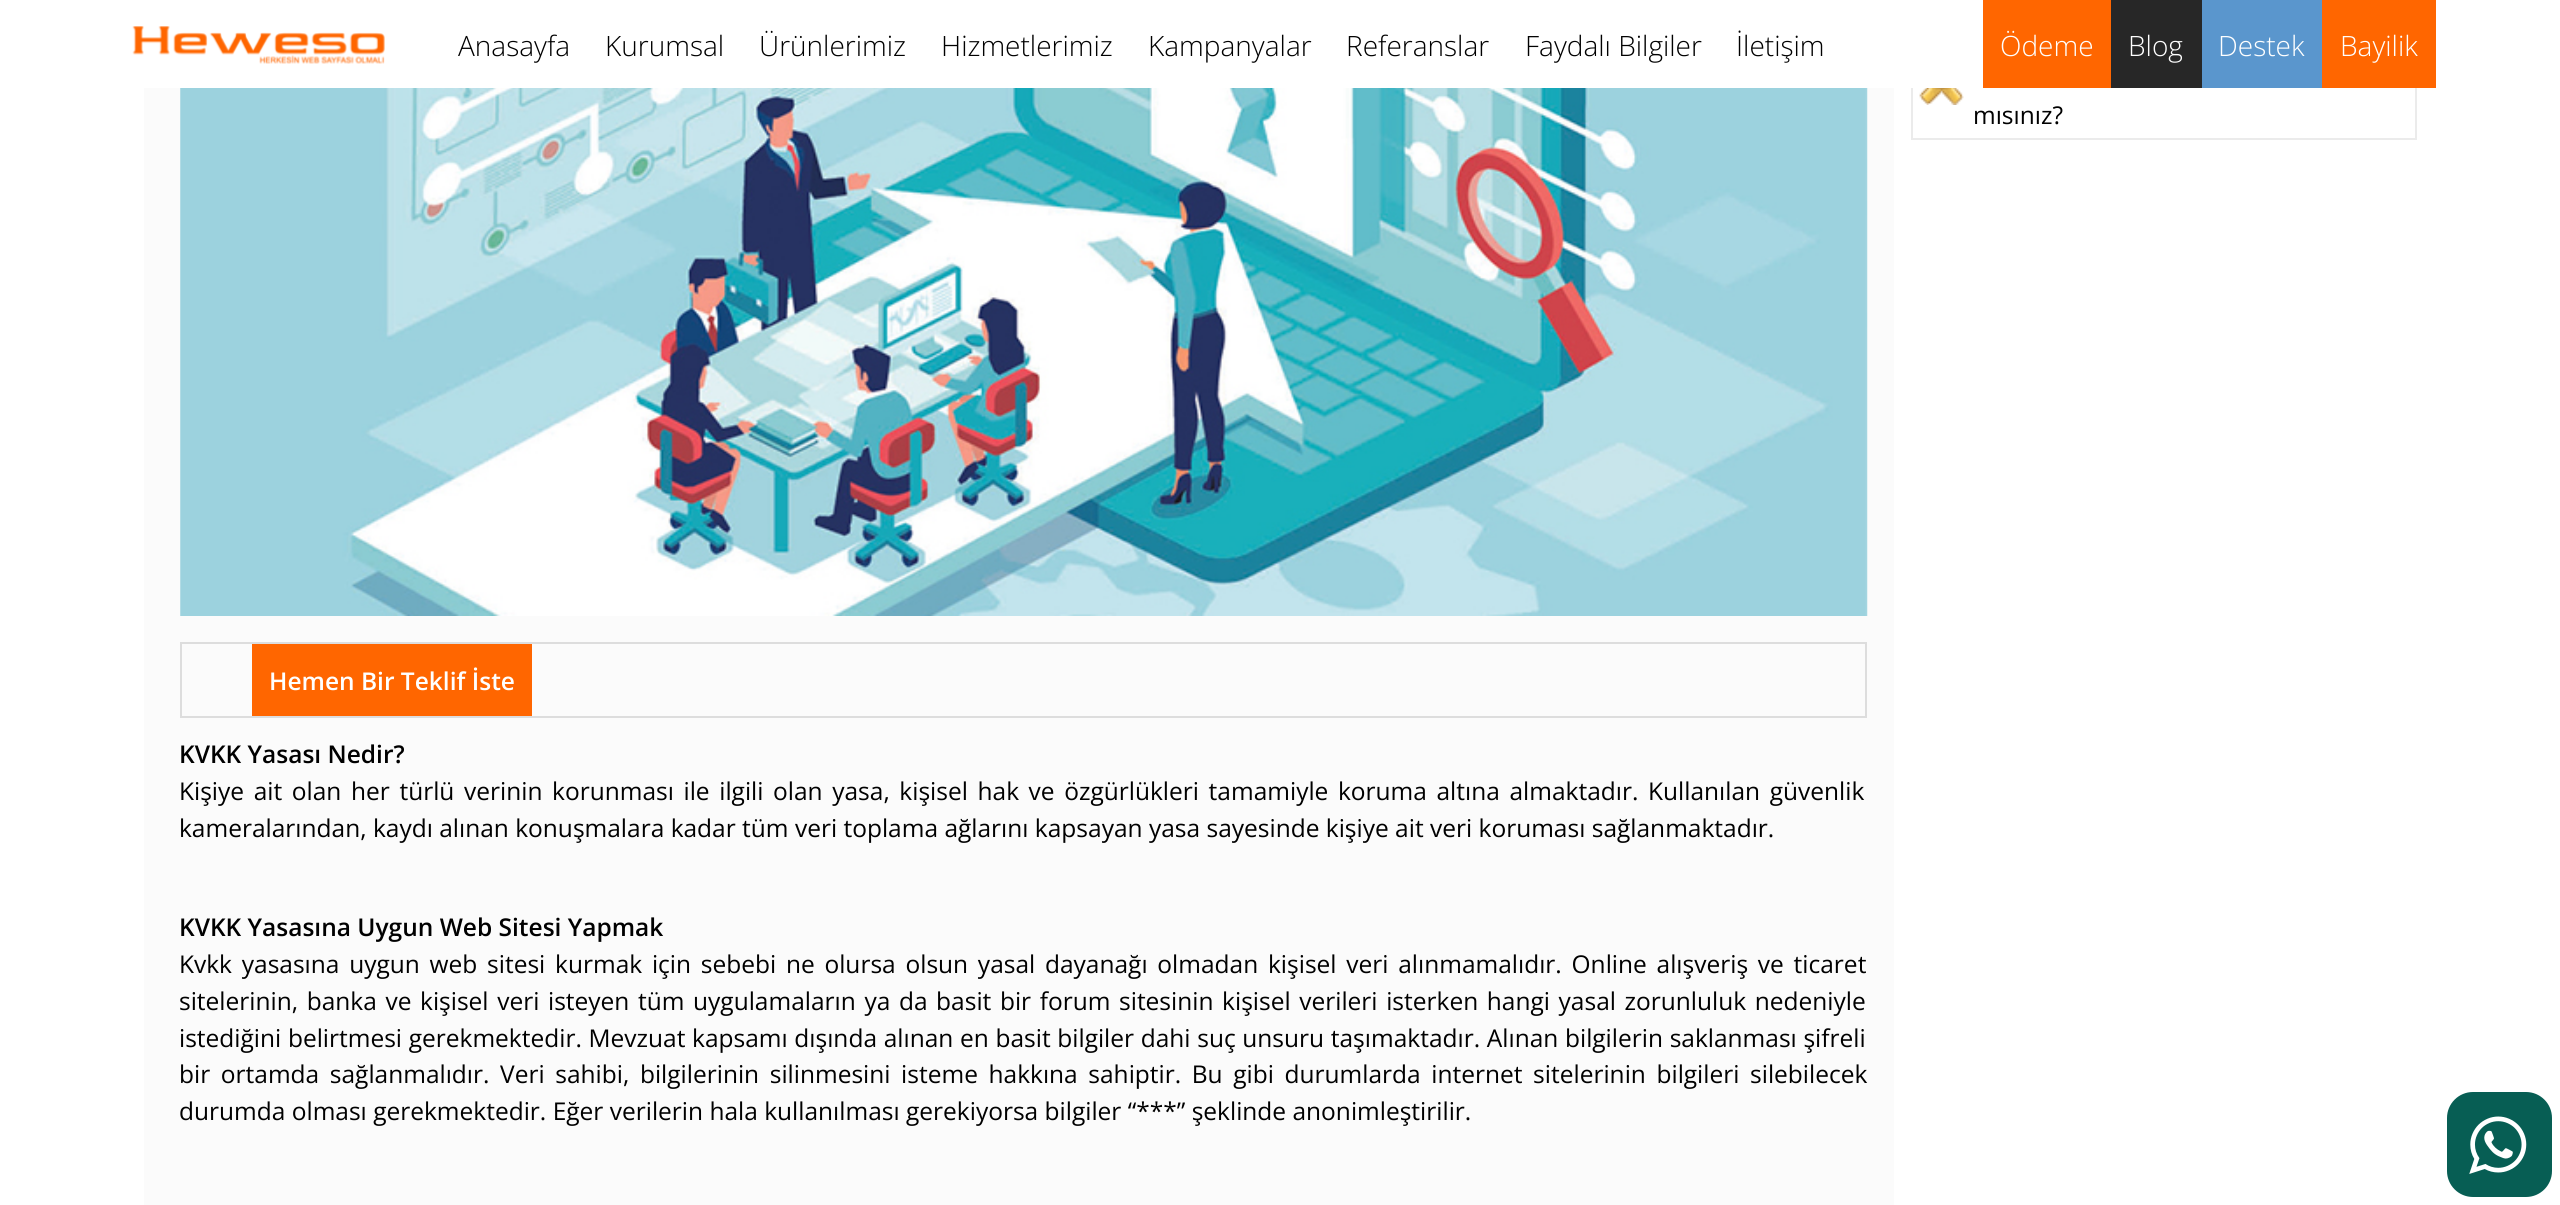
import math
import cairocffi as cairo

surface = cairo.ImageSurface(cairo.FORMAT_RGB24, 2560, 1205)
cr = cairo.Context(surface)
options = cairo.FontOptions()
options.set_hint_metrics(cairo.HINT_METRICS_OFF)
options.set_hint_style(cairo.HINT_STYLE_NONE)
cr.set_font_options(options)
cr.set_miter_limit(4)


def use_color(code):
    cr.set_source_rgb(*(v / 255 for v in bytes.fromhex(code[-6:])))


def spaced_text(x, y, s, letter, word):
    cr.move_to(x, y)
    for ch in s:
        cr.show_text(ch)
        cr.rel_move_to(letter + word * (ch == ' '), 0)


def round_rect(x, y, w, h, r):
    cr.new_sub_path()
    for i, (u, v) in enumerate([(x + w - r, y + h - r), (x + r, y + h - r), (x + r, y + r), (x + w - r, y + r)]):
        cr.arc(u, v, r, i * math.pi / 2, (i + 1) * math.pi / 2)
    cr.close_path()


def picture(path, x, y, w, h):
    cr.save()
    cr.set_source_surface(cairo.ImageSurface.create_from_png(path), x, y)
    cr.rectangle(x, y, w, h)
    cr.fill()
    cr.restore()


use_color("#ffffff")
cr.paint()
picture("img2.png", 1919, 88, 45, 17)
cr.rectangle(1912, 15, 504, 124)
use_color("#ebebeb")
cr.stroke()
use_color("#ffffff")
cr.rectangle(1911, 14, 506, 74)
cr.fill()
picture("img1.png", 132, 26, 253, 38)
cr.select_font_face("Open Sans Light")
cr.set_font_size(28)
use_color("#000000")
cr.move_to(458, 56)
cr.show_text("Anasayfa")
cr.move_to(605, 56)
cr.show_text("Kurumsal")
cr.move_to(759, 56)
cr.show_text("Ürünlerimiz")
cr.move_to(941, 56)
cr.show_text("Hizmetlerimiz")
cr.move_to(1148, 56)
cr.show_text("Kampanyalar")
cr.move_to(1346, 56)
cr.show_text("Referanslar")
cr.move_to(1525, 56)
cr.show_text("Faydalı Bilgiler")
cr.move_to(1736, 56)
cr.show_text("İletişim")
use_color("#ff6600")
cr.rectangle(1983, 0, 128, 88)
cr.fill()
use_color("#ffffff")
cr.move_to(2000, 56)
cr.show_text("Ödeme")
use_color("#272727")
cr.rectangle(2111, 0, 91, 88)
cr.fill()
use_color("#ffffff")
cr.move_to(2128, 56)
cr.show_text("Blog")
use_color("#5a96cd")
cr.rectangle(2202, 0, 120, 88)
cr.fill()
use_color("#ffffff")
cr.move_to(2218, 56)
cr.show_text("Destek")
use_color("#ff6600")
cr.rectangle(2322, 0, 114, 88)
cr.fill()
use_color("#ffffff")
cr.move_to(2340, 56)
cr.show_text("Bayilik")
cr.select_font_face("Open Sans")
cr.set_font_size(24.5)
use_color("#000000")
cr.move_to(1973, 124)
cr.show_text("mısınız?")
use_color("#fbfbfb")
cr.rectangle(144, 88, 1750, 1117)
cr.fill()
picture("img3.png", 180, 88, 1688, 528)
cr.rectangle(181, 643, 1685, 74)
use_color("#dddddd")
cr.stroke()
use_color("#ff6600")
cr.rectangle(252, 644, 280, 72)
cr.fill()
cr.select_font_face("Open Sans SemiBold")
use_color("#ffffff")
cr.move_to(269, 690)
cr.show_text("Hemen Bir Teklif İste")
use_color("#000000")
cr.move_to(179, 763)
cr.show_text("KVKK Yasası Nedir?")
cr.select_font_face("Open Sans")
spaced_text(179, 800, "Kişiye ait olan her türlü verinin korunması ile ilgili olan yasa, kişisel hak ve özgürlükleri tamamiyle koruma altına almaktadır. Kullanılan güvenlik", 0, 3.25)
cr.move_to(179, 837)
cr.show_text("kameralarından, kaydı alınan konuşmalara kadar tüm veri toplama ağlarını kapsayan yasa sayesinde kişiye ait veri koruması sağlanmaktadır.")
cr.select_font_face("Open Sans SemiBold")
cr.move_to(179, 936)
cr.show_text("KVKK Yasasına Uygun Web Sitesi Yapmak")
cr.select_font_face("Open Sans")
spaced_text(179, 973, "Kvkk yasasına uygun web sitesi kurmak için sebebi ne olursa olsun yasal dayanağı olmadan kişisel veri alınmamalıdır. Online alışveriş ve ticaret", 0, 3.4)
spaced_text(179, 1010, "sitelerinin, banka ve kişisel veri isteyen tüm uygulamaların ya da basit bir forum sitesinin kişisel verileri isterken hangi yasal zorunluluk nedeniyle", 0, 2.25)
spaced_text(179, 1047, "istediğini belirtmesi gerekmektedir. Mevzuat kapsamı dışında alınan en basit bilgiler dahi suç unsuru taşımaktadır. Alınan bilgilerin saklanması şifreli", 0, 0.3)
spaced_text(179, 1083, "bir ortamda sağlanmalıdır. Veri sahibi, bilgilerinin silinmesini isteme hakkına sahiptir. Bu gibi durumlarda internet sitelerinin bilgileri silebilecek", 0, 4.25)
cr.move_to(179, 1120)
cr.show_text("durumda olması gerekmektedir. Eğer verilerin hala kullanılması gerekiyorsa bilgiler “***” şeklinde anonimleştirilir.")
use_color("#075e54")
round_rect(2447, 1092, 105, 105, 26)
cr.fill()
picture("img4.png", 2469, 1116, 58, 58)
surface.write_to_png("result.png")
